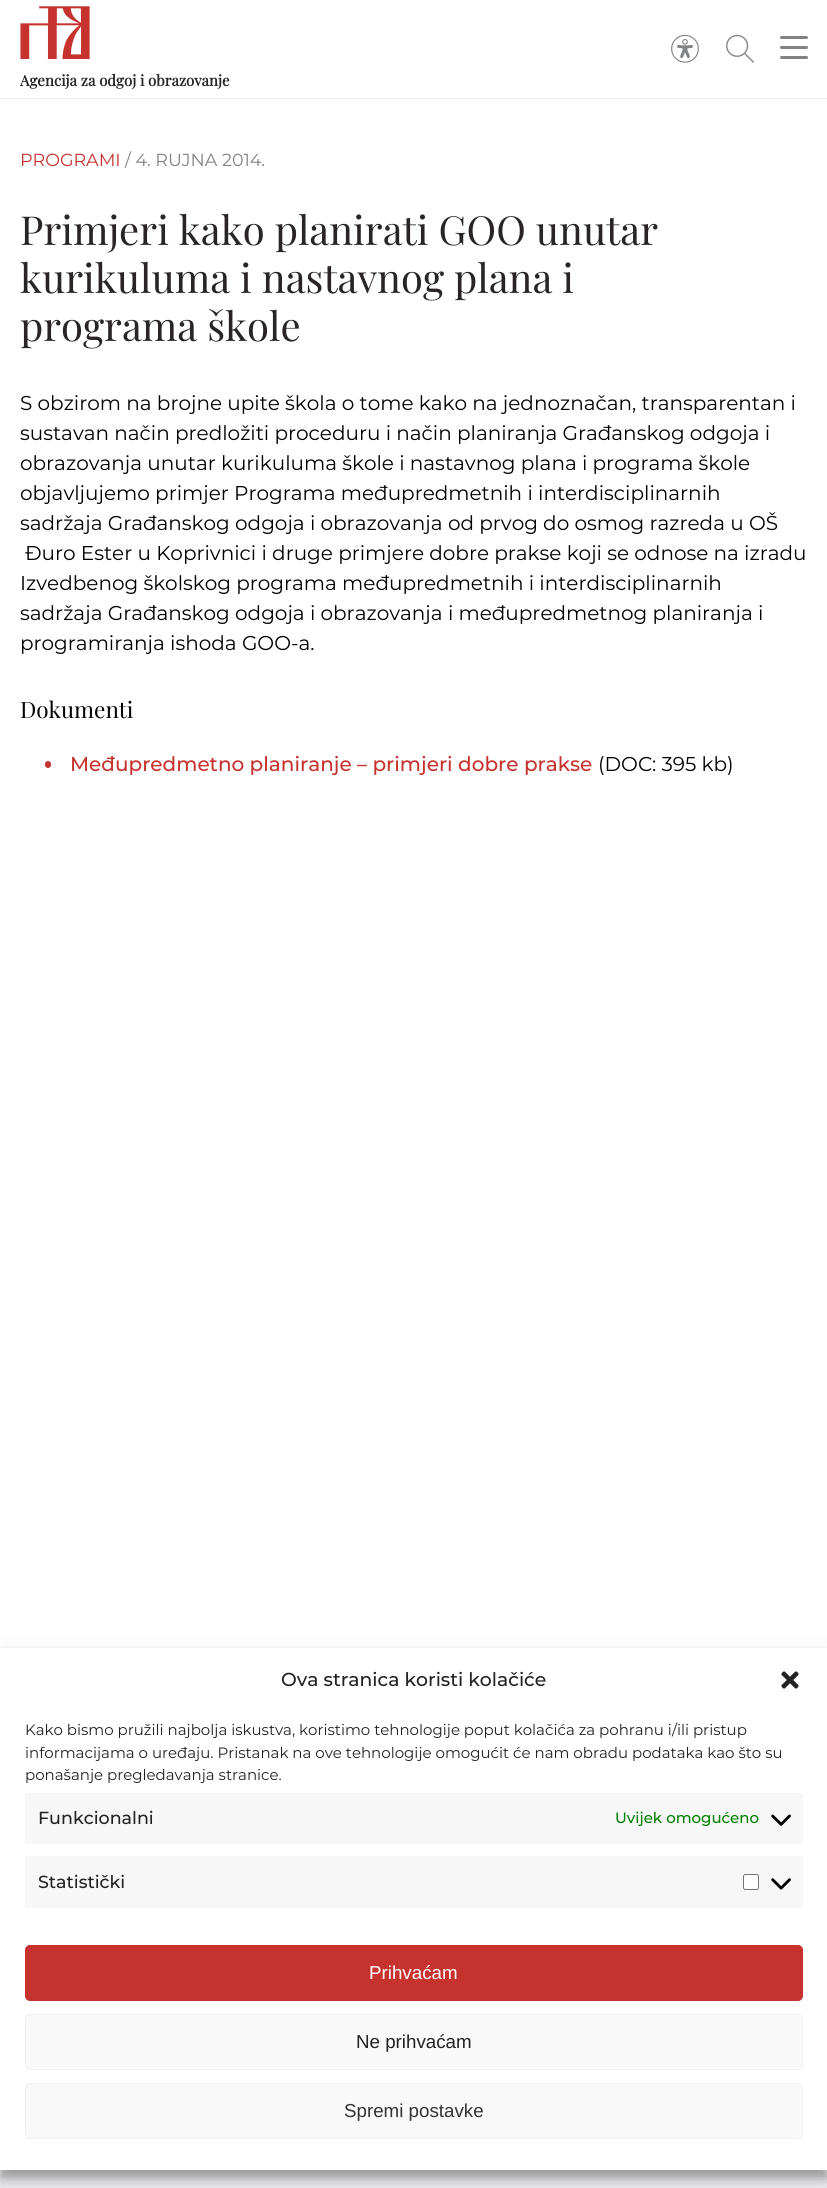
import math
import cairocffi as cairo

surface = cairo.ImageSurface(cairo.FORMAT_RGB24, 827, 2188)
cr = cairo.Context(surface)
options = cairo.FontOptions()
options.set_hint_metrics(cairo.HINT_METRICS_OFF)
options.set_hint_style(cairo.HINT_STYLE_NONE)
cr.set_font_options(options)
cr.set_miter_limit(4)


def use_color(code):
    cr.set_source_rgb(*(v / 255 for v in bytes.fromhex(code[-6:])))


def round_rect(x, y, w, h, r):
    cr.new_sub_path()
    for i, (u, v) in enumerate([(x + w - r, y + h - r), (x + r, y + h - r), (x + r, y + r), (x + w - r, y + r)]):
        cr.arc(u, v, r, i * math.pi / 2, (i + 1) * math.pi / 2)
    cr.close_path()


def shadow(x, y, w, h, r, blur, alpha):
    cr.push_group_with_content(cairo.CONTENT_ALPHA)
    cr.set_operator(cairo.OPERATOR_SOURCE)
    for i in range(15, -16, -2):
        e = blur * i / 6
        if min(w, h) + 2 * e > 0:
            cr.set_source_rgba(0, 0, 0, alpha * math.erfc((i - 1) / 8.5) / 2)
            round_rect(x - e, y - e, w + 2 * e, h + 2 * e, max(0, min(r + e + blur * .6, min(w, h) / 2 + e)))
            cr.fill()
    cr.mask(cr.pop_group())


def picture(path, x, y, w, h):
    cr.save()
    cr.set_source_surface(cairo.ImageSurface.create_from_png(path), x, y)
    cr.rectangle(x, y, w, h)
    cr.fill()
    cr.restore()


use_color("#ffffff")
cr.paint()
use_color("#ebebeb")
cr.rectangle(0, 98, 827, 1)
cr.fill()
picture("img1.png", 671, 34, 28, 29)
picture("img2.png", 726, 34, 28, 29)
use_color("#818284")
round_rect(780, 36, 28, 3, 1.5)
cr.fill()
round_rect(780, 46, 28, 3, 1.5)
cr.fill()
round_rect(780, 56, 28, 3, 1.5)
cr.fill()
picture("img3.png", 20, 6, 70, 53)
cr.select_font_face("Playfair Display", cairo.FONT_SLANT_NORMAL, cairo.FONT_WEIGHT_BOLD)
cr.set_font_size(15)
use_color("#292526")
cr.move_to(20, 86)
cr.show_text("Agencija za odgoj i obrazovanje")
cr.select_font_face("Montserrat")
cr.set_font_size(17.5)
use_color("#c6322d")
cr.move_to(20, 166)
cr.show_text("PROGRAMI")
use_color("#818284")
cr.move_to(125, 166)
cr.show_text("/ 4. RUJNA 2014.")
cr.select_font_face("Playfair Display")
cr.set_font_size(40)
use_color("#292526")
cr.move_to(20, 245)
cr.show_text("Primjeri kako planirati GOO unutar")
cr.move_to(20, 293)
cr.show_text("kurikuluma i nastavnog plana i")
cr.move_to(20, 341)
cr.show_text("programa škole")
cr.select_font_face("Montserrat")
cr.set_font_size(20)
use_color("#000000")
cr.move_to(20, 410)
cr.show_text("S obzirom na brojne upite škola o tome kako na jednoznačan, transparentan i")
cr.move_to(20, 440)
cr.show_text("sustavan način predložiti proceduru i način planiranja Građanskog odgoja i")
cr.move_to(20, 470)
cr.show_text("obrazovanja unutar kurikuluma škole i nastavnog plana i programa škole")
cr.move_to(20, 500)
cr.show_text("objavljujemo primjer Programa međupredmetnih i interdisciplinarnih")
cr.move_to(20, 530)
cr.show_text("sadržaja Građanskog odgoja i obrazovanja od prvog do osmog razreda u OŠ")
cr.move_to(25, 560)
cr.show_text("Đuro Ester u Koprivnici i druge primjere dobre prakse koji se odnose na izradu")
cr.move_to(20, 590)
cr.show_text("Izvedbenog školskog programa međupredmetnih i interdisciplinarnih")
cr.move_to(20, 620)
cr.show_text("sadržaja Građanskog odgoja i obrazovanja i međupredmetnog planiranja i")
cr.move_to(20, 650)
cr.show_text("programiranja ishoda GOO-a.")
cr.select_font_face("Playfair Display")
cr.set_font_size(22.5)
cr.move_to(20, 718)
cr.show_text("Dokumenti")
use_color("#c6322d")
round_rect(45, 761, 6, 7, 3)
cr.fill()
cr.select_font_face("Montserrat Medium")
cr.set_font_size(20)
cr.move_to(70, 771)
cr.show_text("Međupredmetno planiranje – primjeri dobre prakse")
cr.select_font_face("Montserrat")
use_color("#000000")
cr.move_to(598, 771)
cr.show_text("(DOC: 395 kb)")
use_color("#f5f5f7")
cr.rectangle(0, 2170, 827, 18)
cr.fill()
use_color("#000000")
shadow(0, 1655, 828, 523, 0, 4, 0.23)
shadow(0, 1660, 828, 523, 0, 12.5, 0.19)
use_color("#ffffff")
cr.rectangle(0, 1648, 827, 522)
cr.fill()
cr.select_font_face("Montserrat Medium")
cr.set_font_size(18.75)
use_color("#222222")
cr.move_to(281, 1686)
cr.show_text("Ova stranica koristi kolačiće")
picture("img4.png", 781, 1671, 18, 18)
cr.select_font_face("Montserrat")
cr.set_font_size(15)
cr.move_to(25, 1735)
cr.show_text("Kako bismo pružili najbolja iskustva, koristimo tehnologije poput kolačića za pohranu i/ili pristup")
cr.move_to(25, 1758)
cr.show_text("informacijama o uređaju. Pristanak na ove tehnologije omogućit će nam obradu podataka kao što su")
cr.move_to(25, 1780)
cr.show_text("ponašanje pregledavanja stranice.")
use_color("#f7f7f7")
cr.rectangle(25, 1793, 778, 51)
cr.fill()
cr.select_font_face("Montserrat Medium")
cr.set_font_size(17.5)
use_color("#222222")
cr.move_to(38, 1824)
cr.show_text("Funkcionalni")
cr.set_font_size(15)
use_color("#008000")
cr.move_to(615, 1823)
cr.show_text("Uvijek omogućeno")
picture("img5.png", 771, 1814, 20, 12)
use_color("#f7f7f7")
cr.rectangle(25, 1856, 778, 52)
cr.fill()
cr.set_font_size(17.5)
use_color("#222222")
cr.move_to(38, 1888)
cr.show_text("Statistički")
use_color("#ffffff")
round_rect(743.5, 1874.5, 15, 15, 2)
cr.fill_preserve()
use_color("#767676")
cr.set_line_width(1)
cr.stroke()
picture("img6.png", 771, 1878, 20, 12)
use_color("#c6322d")
round_rect(25.5, 1945.5, 777, 55, 4.5)
cr.fill_preserve()
cr.stroke()
cr.select_font_face("Liberation Sans")
cr.set_font_size(18.75)
use_color("#ffffff")
cr.move_to(369, 1979)
cr.show_text("Prihvaćam")
use_color("#f9f9f9")
round_rect(25.5, 2014.5, 777, 55, 4.5)
cr.fill_preserve()
use_color("#f2f2f2")
cr.stroke()
use_color("#222222")
cr.move_to(356, 2048)
cr.show_text("Ne prihvaćam")
use_color("#f9f9f9")
round_rect(25.5, 2083.5, 777, 55, 4.5)
cr.fill_preserve()
use_color("#f2f2f2")
cr.stroke()
use_color("#333333")
cr.move_to(344, 2117)
cr.show_text("Spremi postavke")
surface.write_to_png("result.png")
